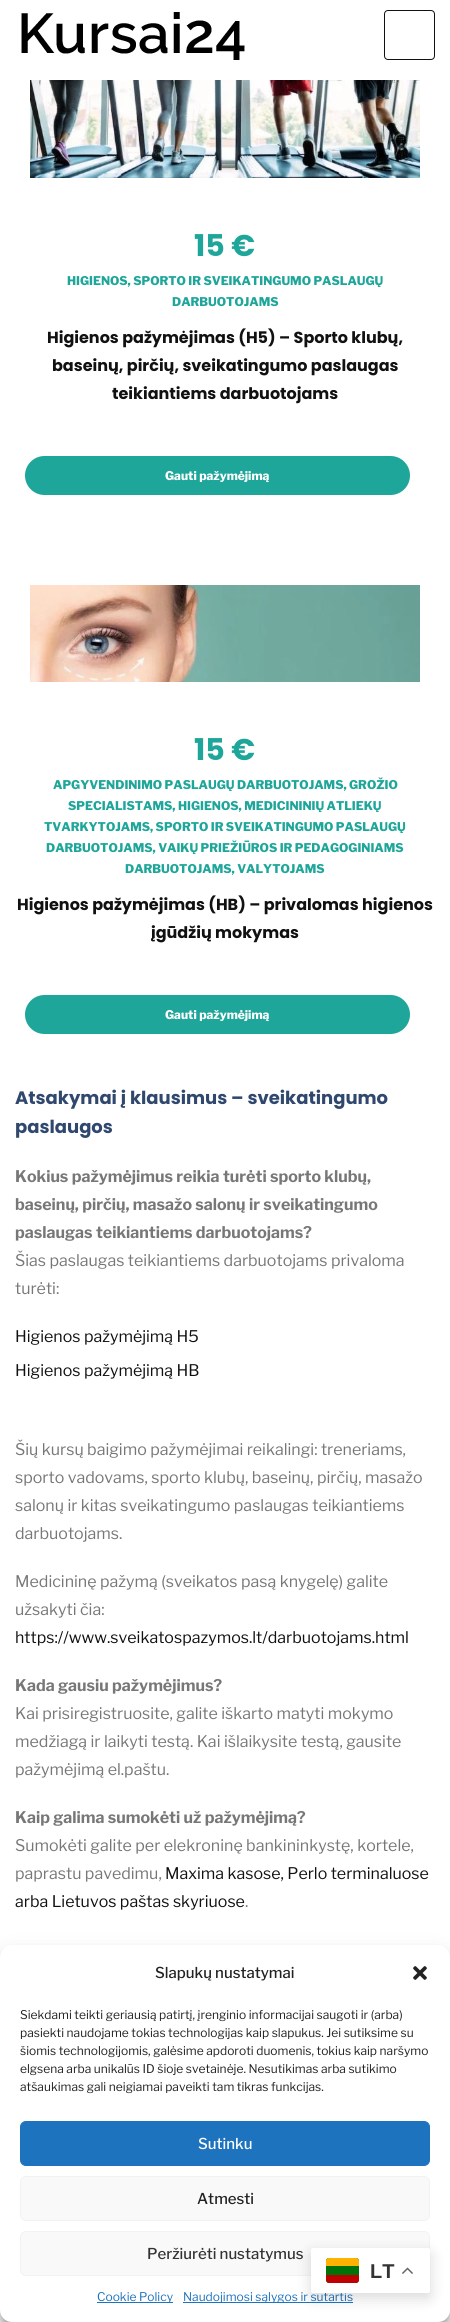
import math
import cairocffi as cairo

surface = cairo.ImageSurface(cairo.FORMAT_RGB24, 450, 2322)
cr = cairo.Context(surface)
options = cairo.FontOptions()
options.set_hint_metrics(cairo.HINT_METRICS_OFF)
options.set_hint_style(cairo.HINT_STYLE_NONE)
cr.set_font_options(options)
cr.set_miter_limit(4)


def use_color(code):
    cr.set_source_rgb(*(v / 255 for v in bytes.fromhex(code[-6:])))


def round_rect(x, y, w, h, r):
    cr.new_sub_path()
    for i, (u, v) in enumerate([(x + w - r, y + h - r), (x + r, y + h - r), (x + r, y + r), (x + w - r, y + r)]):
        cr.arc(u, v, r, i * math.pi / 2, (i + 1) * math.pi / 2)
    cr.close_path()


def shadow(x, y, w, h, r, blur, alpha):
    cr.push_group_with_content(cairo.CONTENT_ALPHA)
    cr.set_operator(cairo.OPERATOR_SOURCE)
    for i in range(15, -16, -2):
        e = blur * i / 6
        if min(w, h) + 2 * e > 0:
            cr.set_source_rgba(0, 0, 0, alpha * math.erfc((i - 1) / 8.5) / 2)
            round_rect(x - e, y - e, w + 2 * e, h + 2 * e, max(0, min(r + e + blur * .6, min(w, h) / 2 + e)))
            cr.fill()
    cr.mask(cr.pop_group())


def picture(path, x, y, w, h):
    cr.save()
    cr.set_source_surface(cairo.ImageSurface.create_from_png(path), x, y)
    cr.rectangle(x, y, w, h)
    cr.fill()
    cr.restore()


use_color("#ffffff")
cr.paint()
picture("img1.png", 21, 12, 224, 48)
round_rect(384.5, 10.5, 50, 49, 3.5)
use_color("#111111")
cr.set_line_width(1)
cr.stroke()
picture("img2.png", 30, 80, 390, 98)
cr.select_font_face("Poppins", cairo.FONT_SLANT_NORMAL, cairo.FONT_WEIGHT_BOLD)
cr.set_font_size(30)
use_color("#1ea69a")
cr.move_to(194, 256)
cr.show_text("15 €")
cr.select_font_face("Libre Franklin ExtraBold")
cr.set_font_size(12)
cr.move_to(67, 285)
cr.show_text("HIGIENOS, SPORTO IR SVEIKATINGUMO PASLAUGŲ")
cr.move_to(172, 306)
cr.show_text("DARBUOTOJAMS")
cr.select_font_face("Poppins", cairo.FONT_SLANT_NORMAL, cairo.FONT_WEIGHT_BOLD)
cr.set_font_size(16)
use_color("#111111")
cr.move_to(47, 343)
cr.show_text("Higienos pažymėjimas (H5) – Sporto klubų,")
cr.move_to(52, 371)
cr.show_text("baseinų, pirčių, sveikatingumo paslaugas")
cr.move_to(112, 399)
cr.show_text("teikiantiems darbuotojams")
use_color("#1ea69a")
round_rect(25, 456, 385, 39, 19.5)
cr.fill()
cr.select_font_face("Libre Franklin ExtraBold")
cr.set_font_size(12)
use_color("#ffffff")
cr.move_to(165, 480)
cr.show_text("Gauti pažymėjimą")
picture("img3.png", 30, 585, 390, 97)
cr.select_font_face("Poppins", cairo.FONT_SLANT_NORMAL, cairo.FONT_WEIGHT_BOLD)
cr.set_font_size(30)
use_color("#1ea69a")
cr.move_to(194, 760)
cr.show_text("15 €")
cr.select_font_face("Libre Franklin ExtraBold")
cr.set_font_size(12)
cr.move_to(53, 789)
cr.show_text("APGYVENDINIMO PASLAUGŲ DARBUOTOJAMS, GROŽIO")
cr.move_to(68, 810)
cr.show_text("SPECIALISTAMS, HIGIENOS, MEDICININIŲ ATLIEKŲ")
cr.move_to(44, 831)
cr.show_text("TVARKYTOJAMS, SPORTO IR SVEIKATINGUMO PASLAUGŲ")
cr.move_to(46, 852)
cr.show_text("DARBUOTOJAMS, VAIKŲ PRIEŽIŪROS IR PEDAGOGINIAMS")
cr.move_to(125, 873)
cr.show_text("DARBUOTOJAMS, VALYTOJAMS")
cr.select_font_face("Poppins", cairo.FONT_SLANT_NORMAL, cairo.FONT_WEIGHT_BOLD)
cr.set_font_size(16)
use_color("#111111")
cr.move_to(17, 910)
cr.show_text("Higienos pažymėjimas (HB) – privalomas higienos")
cr.move_to(151, 938)
cr.show_text("įgūdžių mokymas")
use_color("#1ea69a")
round_rect(25, 995, 385, 39, 19.5)
cr.fill()
cr.select_font_face("Libre Franklin ExtraBold")
cr.set_font_size(12)
use_color("#ffffff")
cr.move_to(165, 1019)
cr.show_text("Gauti pažymėjimą")
cr.select_font_face("Poppins", cairo.FONT_SLANT_NORMAL, cairo.FONT_WEIGHT_BOLD)
cr.set_font_size(18)
use_color("#30486d")
cr.move_to(15, 1104)
cr.show_text("Atsakymai į klausimus – sveikatingumo")
cr.move_to(15, 1133)
cr.show_text("paslaugos")
cr.select_font_face("Libre Franklin", cairo.FONT_SLANT_NORMAL, cairo.FONT_WEIGHT_BOLD)
cr.set_font_size(16)
use_color("#777777")
cr.move_to(15, 1182)
cr.show_text("Kokius pažymėjimus reikia turėti sporto klubų,")
cr.move_to(15, 1210)
cr.show_text("baseinų, pirčių, masažo salonų ir sveikatingumo")
cr.move_to(15, 1238)
cr.show_text("paslaugas teikiantiems darbuotojams?")
cr.select_font_face("Libre Franklin")
cr.move_to(15, 1266)
cr.show_text("Šias paslaugas teikiantiems darbuotojams privaloma")
cr.move_to(15, 1294)
cr.show_text("turėti:")
use_color("#111111")
cr.move_to(15, 1342)
cr.show_text("Higienos pažymėjimą H5")
cr.move_to(15, 1376)
cr.show_text("Higienos pažymėjimą HB")
use_color("#777777")
cr.move_to(15, 1455)
cr.show_text("Šių kursų baigimo pažymėjimai reikalingi: treneriams,")
cr.move_to(15, 1483)
cr.show_text("sporto vadovams, sporto klubų, baseinų, pirčių, masažo")
cr.move_to(15, 1511)
cr.show_text("salonų ir kitas sveikatingumo paslaugas teikiantiems")
cr.move_to(15, 1539)
cr.show_text("darbuotojams.")
cr.move_to(15, 1587)
cr.show_text("Medicininę pažymą (sveikatos pasą knygelę) galite")
cr.move_to(15, 1615)
cr.show_text("užsakyti čia:")
use_color("#111111")
cr.move_to(15, 1643)
cr.show_text("https://www.sveikatospazymos.lt/darbuotojams.html")
cr.select_font_face("Libre Franklin", cairo.FONT_SLANT_NORMAL, cairo.FONT_WEIGHT_BOLD)
use_color("#777777")
cr.move_to(15, 1691)
cr.show_text("Kada gausiu pažymėjimus?")
cr.select_font_face("Libre Franklin")
cr.move_to(15, 1719)
cr.show_text("Kai prisiregistruosite, galite iškarto matyti mokymo")
cr.move_to(15, 1747)
cr.show_text("medžiagą ir laikyti testą. Kai išlaikysite testą, gausite")
cr.move_to(15, 1775)
cr.show_text("pažymėjimą el.paštu.")
cr.select_font_face("Libre Franklin", cairo.FONT_SLANT_NORMAL, cairo.FONT_WEIGHT_BOLD)
cr.move_to(15, 1823)
cr.show_text("Kaip galima sumokėti už pažymėjimą?")
cr.select_font_face("Libre Franklin")
cr.move_to(15, 1851)
cr.show_text("Sumokėti galite per elekroninę bankininkystę, kortele,")
cr.move_to(15, 1879)
cr.show_text("paprastu pavedimu,")
use_color("#111111")
cr.move_to(165, 1879)
cr.show_text("Maxima kasose, Perlo terminaluose")
cr.move_to(15, 1907)
cr.show_text("arba Lietuvos paštas skyriuose")
use_color("#777777")
cr.move_to(245, 1907)
cr.show_text(".")
use_color("#000000")
shadow(0, 1951, 450, 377, 12, 3, 0.23)
shadow(0, 1955, 450, 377, 12, 10, 0.19)
use_color("#ffffff")
round_rect(0, 1945, 450, 377, 12)
cr.fill()
cr.select_font_face("Libre Franklin Medium")
cr.set_font_size(15)
use_color("#222222")
cr.move_to(155, 1978)
cr.show_text("Slapukų nustatymai")
picture("img4.png", 413, 1966, 14, 14)
cr.select_font_face("Libre Franklin")
cr.set_font_size(12)
cr.move_to(20, 2019)
cr.show_text("Siekdami teikti geriausią patirtį, įrenginio informacijai saugoti ir (arba)")
cr.move_to(20, 2037)
cr.show_text("pasiekti naudojame tokias technologijas kaip slapukus. Jei sutiksime su")
cr.move_to(20, 2055)
cr.show_text("šiomis technologijomis, galėsime apdoroti duomenis, tokius kaip naršymo")
cr.move_to(20, 2073)
cr.show_text("elgsena arba unikalūs ID šioje svetainėje. Nesutikimas arba sutikimo")
cr.move_to(20, 2091)
cr.show_text("atšaukimas gali neigiamai paveikti tam tikras funkcijas.")
use_color("#1e73be")
round_rect(20.5, 2121.5, 409, 44, 5.5)
cr.fill_preserve()
cr.stroke()
cr.select_font_face("Libre Franklin Medium")
cr.set_font_size(15)
use_color("#ffffff")
cr.move_to(198, 2149)
cr.show_text("Sutinku")
use_color("#f9f9f9")
round_rect(20.5, 2176.5, 409, 44, 5.5)
cr.fill_preserve()
use_color("#f2f2f2")
cr.stroke()
use_color("#222222")
cr.move_to(197, 2204)
cr.show_text("Atmesti")
use_color("#f9f9f9")
round_rect(20.5, 2231.5, 409, 44, 5.5)
cr.fill_preserve()
use_color("#f2f2f2")
cr.stroke()
use_color("#333333")
cr.move_to(147, 2259)
cr.show_text("Peržiurėti nustatymus")
use_color("#1e73be")
cr.rectangle(97, 2302, 76, 1)
cr.fill()
cr.select_font_face("Libre Franklin")
cr.set_font_size(12)
cr.move_to(97, 2301)
cr.show_text("Cookie Policy")
cr.rectangle(183, 2302, 170, 1)
cr.fill()
cr.move_to(183, 2301)
cr.show_text("Naudojimosi sąlygos ir sutartis")
use_color("#000000")
shadow(311, 2253, 119, 45, 2, 7.5, 0.15)
use_color("#ffffff")
round_rect(311, 2248, 119, 45, 2)
cr.fill()
use_color("#007308")
round_rect(326, 2258, 33, 25, 3)
cr.fill()
use_color("#bf0000")
cr.new_path()
cr.move_to(326, 2275)
cr.line_to(359, 2275)
cr.line_to(359, 2280)
cr.curve_to(359, 2281.5, 357.5, 2283, 356, 2283)
cr.line_to(329, 2283)
cr.curve_to(327.5, 2283, 326, 2281.5, 326, 2280)
cr.close_path()
cr.fill()
use_color("#ffb300")
cr.new_path()
cr.move_to(329, 2258)
cr.line_to(356, 2258)
cr.curve_to(357.5, 2258, 359, 2259.5, 359, 2261)
cr.line_to(359, 2266)
cr.line_to(326, 2266)
cr.line_to(326, 2261)
cr.curve_to(326, 2259.5, 327.5, 2258, 329, 2258)
cr.close_path()
cr.fill()
cr.select_font_face("Liberation Sans", cairo.FONT_SLANT_NORMAL, cairo.FONT_WEIGHT_BOLD)
cr.set_font_size(20)
use_color("#333333")
cr.move_to(370, 2278)
cr.show_text("LT")
picture("img5.png", 402, 2267, 11, 7)
surface.write_to_png("result.png")
